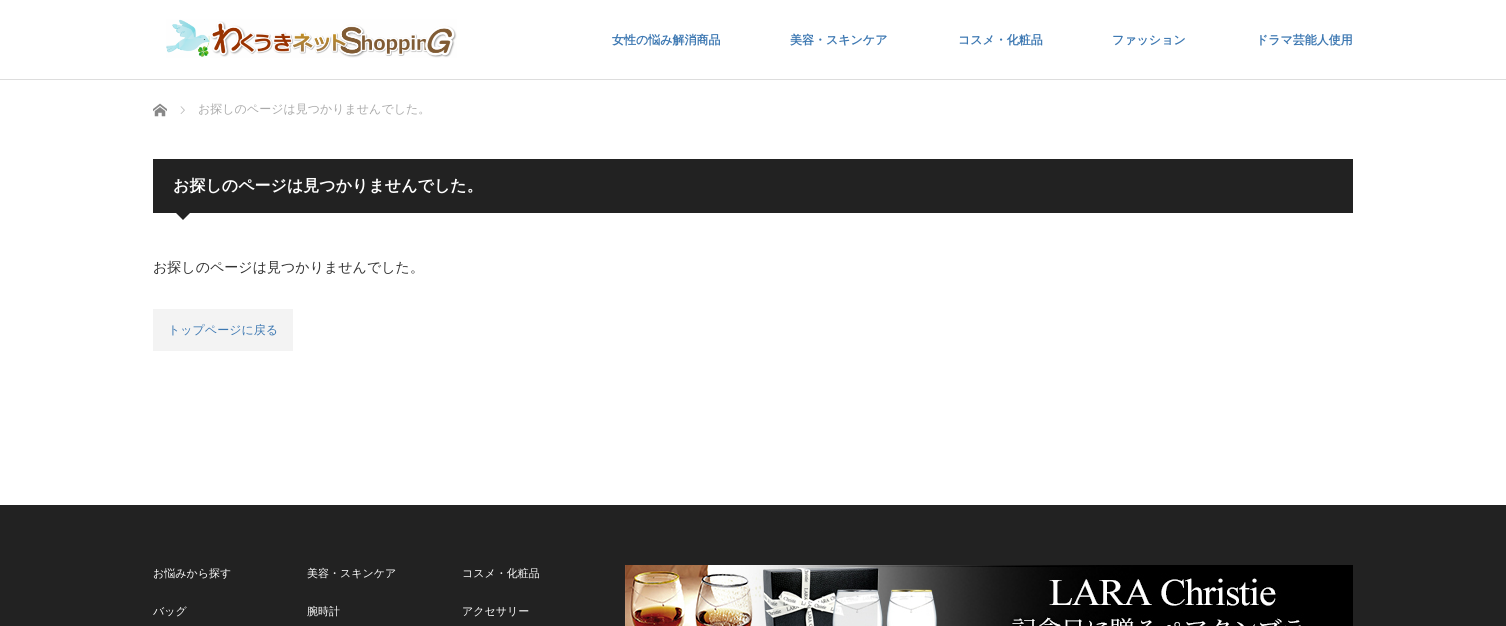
import math
import cairocffi as cairo

surface = cairo.ImageSurface(cairo.FORMAT_RGB24, 1506, 626)
cr = cairo.Context(surface)
options = cairo.FontOptions()
options.set_hint_metrics(cairo.HINT_METRICS_OFF)
options.set_hint_style(cairo.HINT_STYLE_NONE)
cr.set_font_options(options)
cr.set_miter_limit(4)


def use_color(code):
    cr.set_source_rgb(*(v / 255 for v in bytes.fromhex(code[-6:])))


def picture(path, x, y, w, h):
    cr.save()
    cr.set_source_surface(cairo.ImageSurface.create_from_png(path), x, y)
    cr.rectangle(x, y, w, h)
    cr.fill()
    cr.restore()


use_color("#ffffff")
cr.paint()
use_color("#dddddd")
cr.rectangle(0, 79, 1506, 1)
cr.fill()
picture("img1.png", 166, 19, 291, 39)
cr.select_font_face("WenQuanYi Zen Hei", cairo.FONT_SLANT_NORMAL, cairo.FONT_WEIGHT_BOLD)
cr.set_font_size(12)
use_color("#3d78b2")
cr.move_to(612, 44)
cr.show_text("女性の悩み解消商品")
cr.move_to(790, 44)
cr.show_text("美容・スキンケア")
cr.move_to(958, 44)
cr.show_text("コスメ・化粧品")
cr.move_to(1112, 44)
cr.show_text("ファッション")
cr.move_to(1256, 44)
cr.show_text("ドラマ芸能人使用")
picture("img2.png", 153, 103, 14, 14)
picture("img3.png", 180, 106, 5, 8)
cr.select_font_face("WenQuanYi Zen Hei Medium")
use_color("#aaaaaa")
cr.move_to(198, 113)
cr.show_text("お探しのページは見つかりませんでした。")
use_color("#222222")
cr.rectangle(153, 159, 1200, 54)
cr.fill()
cr.select_font_face("WenQuanYi Zen Hei", cairo.FONT_SLANT_NORMAL, cairo.FONT_WEIGHT_BOLD)
cr.set_font_size(16)
use_color("#ffffff")
cr.move_to(173, 191)
cr.show_text("お探しのページは見つかりませんでした。")
use_color("#222222")
cr.new_path()
cr.move_to(173, 210)
cr.line_to(193, 210)
cr.line_to(183, 220)
cr.close_path()
cr.fill()
cr.select_font_face("WenQuanYi Zen Hei Medium")
cr.set_font_size(14)
use_color("#333333")
cr.move_to(153, 272)
cr.show_text("お探しのページは見つかりませんでした。")
use_color("#f3f3f3")
cr.rectangle(153, 309, 140, 42)
cr.fill()
cr.set_font_size(12)
use_color("#3d78b2")
cr.move_to(168, 334)
cr.show_text("トップページに戻る")
use_color("#222222")
cr.rectangle(0, 505, 1506, 121)
cr.fill()
cr.set_font_size(11)
use_color("#ffffff")
cr.move_to(153, 577)
cr.show_text("お悩みから探す")
cr.move_to(307, 577)
cr.show_text("美容・スキンケア")
cr.move_to(462, 577)
cr.show_text("コスメ・化粧品")
cr.move_to(153, 615)
cr.show_text("バッグ")
cr.move_to(307, 615)
cr.show_text("腕時計")
cr.move_to(462, 615)
cr.show_text("アクセサリー")
picture("img4.png", 625, 565, 728, 61)
surface.write_to_png("result.png")
